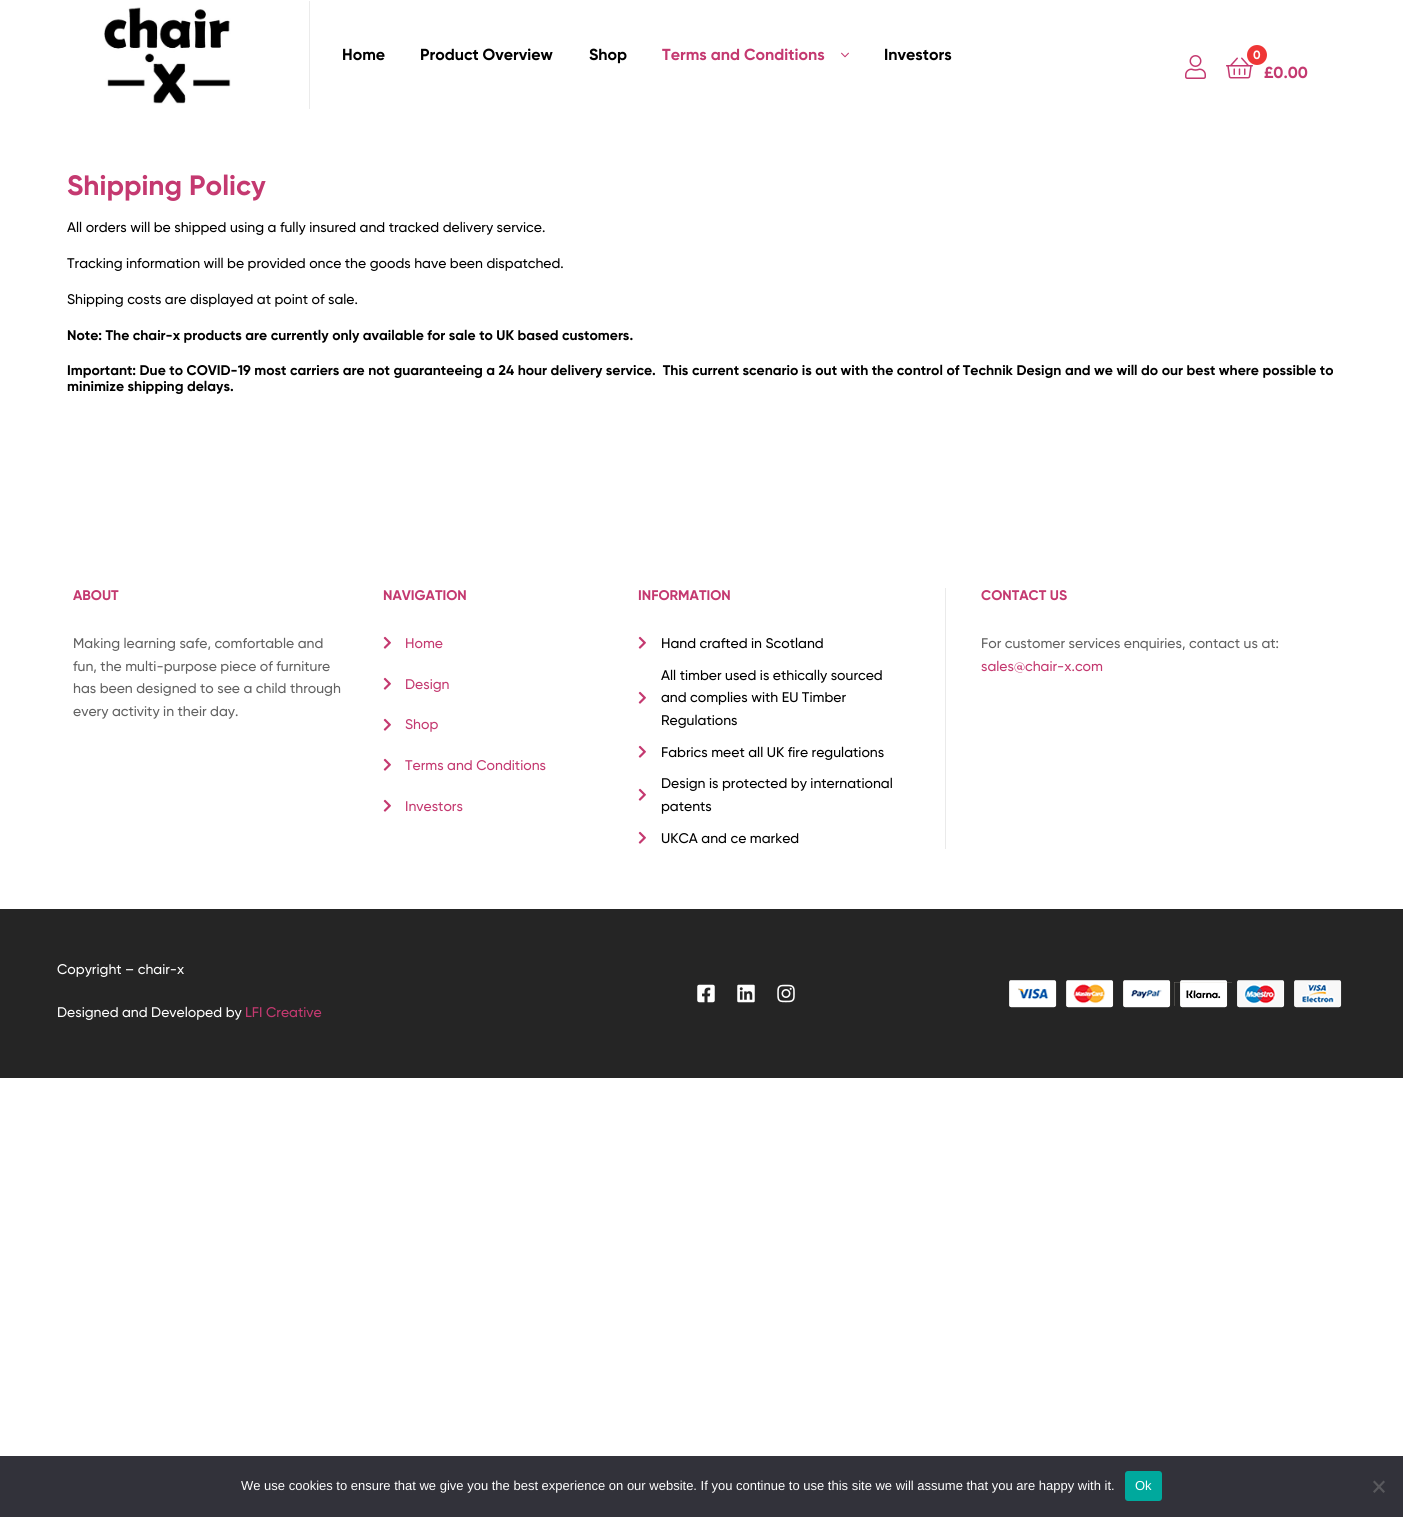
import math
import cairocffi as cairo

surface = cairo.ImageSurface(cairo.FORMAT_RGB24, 1403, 1517)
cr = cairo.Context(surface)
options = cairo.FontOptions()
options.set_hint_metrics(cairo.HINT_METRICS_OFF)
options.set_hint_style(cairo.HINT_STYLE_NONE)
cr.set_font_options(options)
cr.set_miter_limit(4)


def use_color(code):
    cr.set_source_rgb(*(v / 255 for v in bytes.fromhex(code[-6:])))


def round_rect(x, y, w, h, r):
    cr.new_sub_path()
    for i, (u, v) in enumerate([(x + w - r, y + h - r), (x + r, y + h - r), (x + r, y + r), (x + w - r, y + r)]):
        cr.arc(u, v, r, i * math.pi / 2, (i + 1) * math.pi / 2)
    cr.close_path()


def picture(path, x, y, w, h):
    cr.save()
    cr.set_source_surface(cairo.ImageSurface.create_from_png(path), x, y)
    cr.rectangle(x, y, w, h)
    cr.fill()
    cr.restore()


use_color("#ffffff")
cr.paint()
picture("img1.png", 104, 7, 127, 97)
use_color("#ebebeb")
cr.rectangle(309, 1, 1, 108)
cr.fill()
cr.select_font_face("Gilroy", cairo.FONT_SLANT_NORMAL, cairo.FONT_WEIGHT_BOLD)
cr.set_font_size(16)
use_color("#000000")
cr.move_to(342, 60)
cr.show_text("Home")
cr.move_to(420, 60)
cr.show_text("Product Overview")
cr.move_to(589, 60)
cr.show_text("Shop")
use_color("#c43970")
cr.move_to(662, 60)
cr.show_text("Terms and Conditions")
picture("img2.png", 841, 52, 8, 6)
use_color("#000000")
cr.move_to(884, 60)
cr.show_text("Investors")
picture("img3.png", 1185, 55, 21, 24)
picture("img4.png", 1226, 57, 27, 22)
use_color("#ef3636")
cr.arc(1257, 55, 10, 0, 2 * math.pi)
cr.fill()
cr.set_font_size(12)
use_color("#ffffff")
cr.move_to(1253, 59)
cr.show_text("0")
cr.set_font_size(16)
use_color("#c43970")
cr.move_to(1264, 78)
cr.show_text("£0.00")
cr.set_font_size(28)
cr.move_to(67, 195)
cr.show_text("Shipping Policy")
cr.select_font_face("Gilroy Medium")
cr.set_font_size(14)
use_color("#000000")
cr.move_to(67, 232)
cr.show_text("All orders will be shipped using a fully insured and tracked delivery service.")
cr.move_to(67, 268)
cr.show_text("Tracking information will be provided once the goods have been dispatched.")
cr.move_to(67, 304)
cr.show_text("Shipping costs are displayed at point of sale.")
cr.select_font_face("Gilroy", cairo.FONT_SLANT_NORMAL, cairo.FONT_WEIGHT_BOLD)
cr.move_to(67, 340)
cr.show_text("Note: The chair-x products are currently only available for sale to UK based customers.")
cr.move_to(67, 375)
cr.show_text("Important: Due to COVID-19 most carriers are not guaranteeing a 24 hour delivery service.  This current scenario is out with the control of Technik Design and we will do our best where possible to")
cr.move_to(67, 391)
cr.show_text("minimize shipping delays.")
use_color("#c43970")
cr.move_to(73, 600)
cr.show_text("ABOUT")
cr.select_font_face("Gilroy Medium")
use_color("#626262")
cr.move_to(73, 648)
cr.show_text("Making learning safe, comfortable and")
cr.move_to(73, 671)
cr.show_text("fun, the multi-purpose piece of furniture")
cr.move_to(73, 693)
cr.show_text("has been designed to see a child through")
cr.move_to(73, 716)
cr.show_text("every activity in their day.")
cr.select_font_face("Gilroy", cairo.FONT_SLANT_NORMAL, cairo.FONT_WEIGHT_BOLD)
use_color("#c43970")
cr.move_to(383, 600)
cr.show_text("NAVIGATION")
picture("img5.png", 383, 636, 8, 13)
cr.select_font_face("Gilroy Medium")
cr.move_to(405, 648)
cr.show_text("Home")
picture("img5.png", 383, 677, 8, 13)
cr.move_to(405, 689)
cr.show_text("Design")
picture("img5.png", 383, 718, 8, 13)
cr.move_to(405, 729)
cr.show_text("Shop")
picture("img5.png", 383, 758, 8, 13)
cr.move_to(405, 770)
cr.show_text("Terms and Conditions")
picture("img5.png", 383, 799, 8, 13)
cr.move_to(405, 811)
cr.show_text("Investors")
use_color("#eaeaea")
cr.rectangle(945, 588, 1, 261)
cr.fill()
cr.select_font_face("Gilroy", cairo.FONT_SLANT_NORMAL, cairo.FONT_WEIGHT_BOLD)
use_color("#c43970")
cr.move_to(638, 600)
cr.show_text("INFORMATION")
picture("img5.png", 638, 636, 8, 13)
cr.select_font_face("Gilroy Medium")
use_color("#000000")
cr.move_to(661, 648)
cr.show_text("Hand crafted in Scotland")
picture("img5.png", 638, 691, 8, 13)
cr.move_to(661, 680)
cr.show_text("All timber used is ethically sourced")
cr.move_to(661, 702)
cr.show_text("and complies with EU Timber")
cr.move_to(661, 725)
cr.show_text("Regulations")
picture("img5.png", 638, 745, 8, 13)
cr.move_to(661, 757)
cr.show_text("Fabrics meet all UK fire regulations")
picture("img5.png", 638, 788, 8, 13)
cr.move_to(661, 788)
cr.show_text("Design is protected by international")
cr.move_to(661, 811)
cr.show_text("patents")
picture("img5.png", 638, 831, 8, 13)
cr.move_to(661, 843)
cr.show_text("UKCA and ce marked")
cr.select_font_face("Gilroy", cairo.FONT_SLANT_NORMAL, cairo.FONT_WEIGHT_BOLD)
use_color("#c43970")
cr.move_to(981, 600)
cr.show_text("CONTACT US")
cr.select_font_face("Gilroy Medium")
use_color("#626262")
cr.move_to(981, 648)
cr.show_text("For customer services enquiries, contact us at:")
use_color("#c43970")
cr.move_to(981, 671)
cr.show_text("sales@chair-x.com")
use_color("#252525")
cr.rectangle(0, 909, 1403, 169)
cr.fill()
use_color("#ffffff")
cr.move_to(57, 974)
cr.show_text("Copyright – chair-x")
cr.move_to(57, 1017)
cr.show_text("Designed and Developed by")
use_color("#c43970")
cr.move_to(245, 1017)
cr.show_text("LFI Creative")
picture("img6.png", 697, 984, 18, 19)
picture("img7.png", 737, 984, 18, 19)
picture("img8.png", 777, 984, 18, 19)
picture("img9.png", 1009, 980, 333, 28)
use_color("#32323a")
cr.rectangle(0, 1456, 1403, 61)
cr.fill()
cr.select_font_face("Liberation Sans")
cr.set_font_size(13)
use_color("#ffffff")
cr.move_to(241, 1490)
cr.show_text("We use cookies to ensure that we give you the best experience on our website. If you continue to use this site we will assume that you are happy with it.")
use_color("#00a99d")
round_rect(1125, 1471, 37, 30, 3)
cr.fill()
use_color("#ffffff")
cr.move_to(1135, 1490)
cr.show_text("Ok")
use_color("#59595d")
cr.new_path()
cr.move_to(1383.5, 1480.5)
cr.line_to(1385, 1482)
cr.line_to(1374.5, 1493)
cr.line_to(1373, 1491.5)
cr.close_path()
cr.fill()
cr.new_path()
cr.move_to(1373, 1482)
cr.line_to(1374.5, 1480.5)
cr.line_to(1385, 1491.5)
cr.line_to(1383.5, 1493)
cr.close_path()
cr.fill()
surface.write_to_png("result.png")
